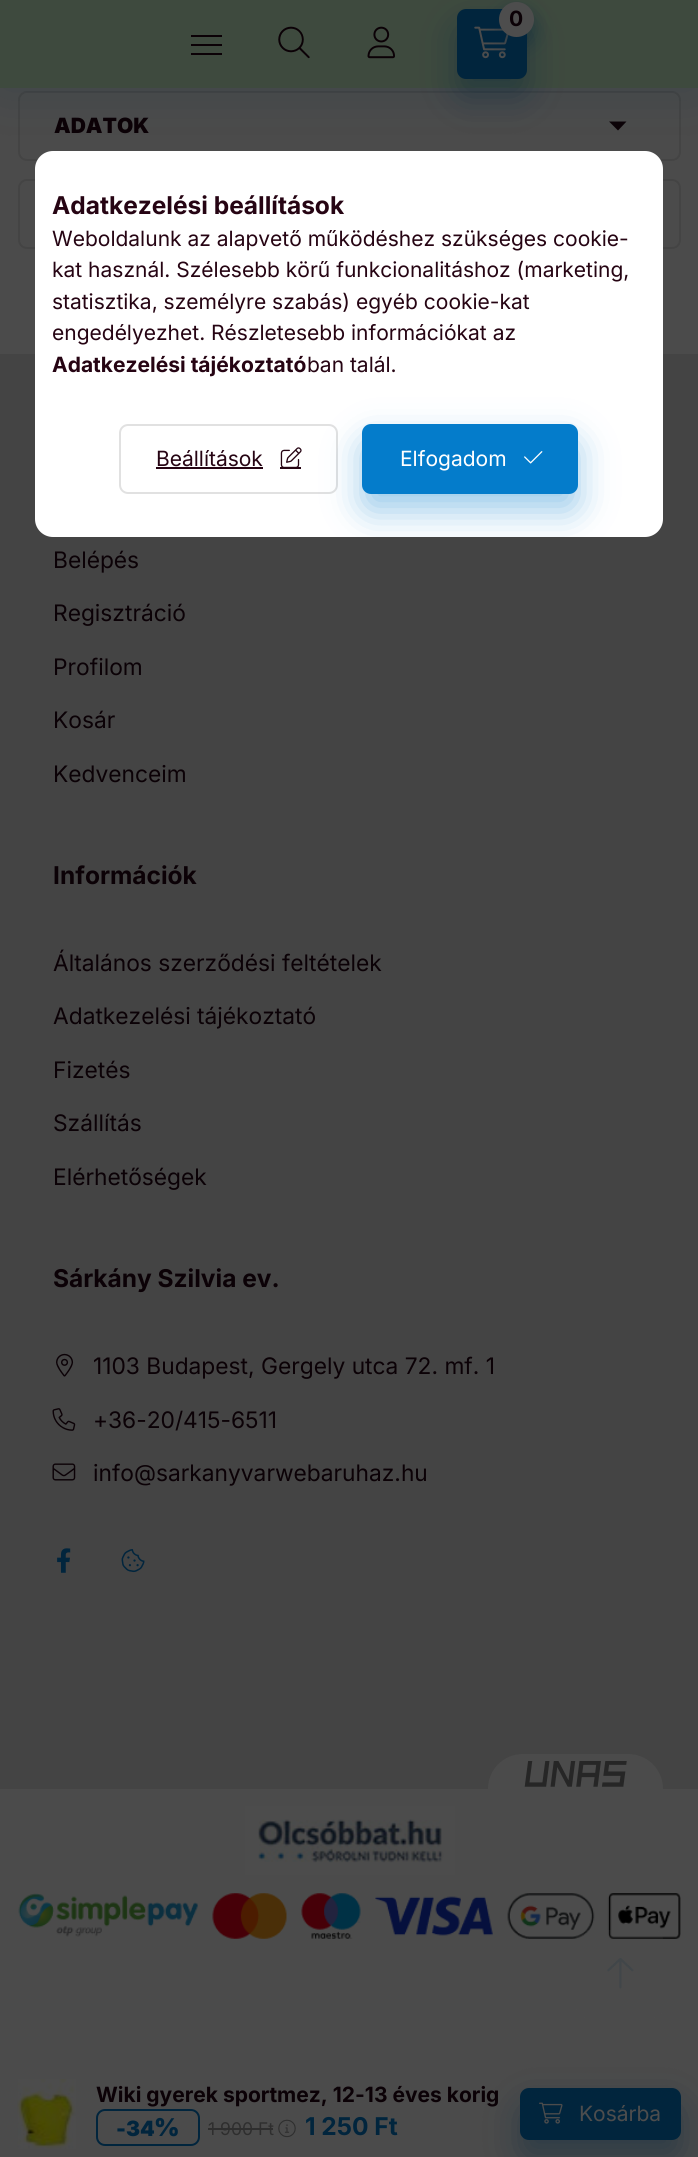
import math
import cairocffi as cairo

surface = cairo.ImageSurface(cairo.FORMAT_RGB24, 698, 2157)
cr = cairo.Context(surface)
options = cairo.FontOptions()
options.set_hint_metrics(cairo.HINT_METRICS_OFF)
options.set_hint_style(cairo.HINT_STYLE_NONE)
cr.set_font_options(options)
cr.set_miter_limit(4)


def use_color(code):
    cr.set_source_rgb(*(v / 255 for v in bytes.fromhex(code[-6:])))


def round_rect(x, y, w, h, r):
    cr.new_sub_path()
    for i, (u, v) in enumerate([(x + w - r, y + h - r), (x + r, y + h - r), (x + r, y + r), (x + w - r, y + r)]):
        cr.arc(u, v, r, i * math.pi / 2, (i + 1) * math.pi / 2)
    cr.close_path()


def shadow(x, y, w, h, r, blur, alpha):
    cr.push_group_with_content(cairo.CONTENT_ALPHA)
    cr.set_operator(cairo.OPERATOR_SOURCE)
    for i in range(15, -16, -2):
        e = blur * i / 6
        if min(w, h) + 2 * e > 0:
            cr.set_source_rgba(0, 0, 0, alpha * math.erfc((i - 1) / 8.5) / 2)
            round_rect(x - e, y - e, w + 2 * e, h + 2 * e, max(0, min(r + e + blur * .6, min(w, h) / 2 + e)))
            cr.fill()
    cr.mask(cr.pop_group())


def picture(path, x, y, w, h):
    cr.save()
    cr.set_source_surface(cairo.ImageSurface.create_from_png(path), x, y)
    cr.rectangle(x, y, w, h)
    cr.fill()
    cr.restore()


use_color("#4b4b4b")
cr.paint()
round_rect(19, 92, 661, 68, 8)
use_color("#444444")
cr.stroke()
use_color("#0b0106")
cr.new_path()
cr.move_to(609, 121.5)
cr.line_to(626.5, 121.5)
cr.line_to(618, 130.5)
cr.close_path()
cr.fill()
use_color("#01253d")
shadow(0, 0, 698, 88, 0, 26, 0.2)
use_color("#3e4a3e")
cr.rectangle(0, 0, 698, 88)
cr.fill()
use_color("#01253d")
shadow(457, 26, 70, 70, 9, 17.5, 0.4)
use_color("#01253d")
round_rect(457, 9, 70, 70, 9)
cr.fill()
picture("img1.png", 474, 26, 35, 33)
use_color("#01253d")
shadow(499, 11, 35, 35, 17.5, 9, 0.4)
use_color("#4d4d4d")
cr.arc(516.5, 19.5, 17.5, 0, 2 * math.pi)
cr.fill()
cr.select_font_face("Inter", cairo.FONT_SLANT_NORMAL, cairo.FONT_WEIGHT_BOLD)
cr.set_font_size(21)
use_color("#0b0106")
cr.move_to(509, 26)
cr.show_text("0")
cr.rectangle(191, 35, 31, 2)
cr.fill()
cr.rectangle(191, 44, 31, 2)
cr.fill()
cr.rectangle(191, 53, 31, 2)
cr.fill()
picture("img2.png", 278, 26, 32, 33)
picture("img3.png", 367, 26, 28, 33)
cr.select_font_face("Inter Black")
cr.move_to(54, 133)
cr.show_text("ADATOK")
round_rect(19, 180, 661, 68, 8)
use_color("#444444")
cr.stroke()
picture("img4.png", 17, 2079, 59, 70)
cr.select_font_face("Inter", cairo.FONT_SLANT_NORMAL, cairo.FONT_WEIGHT_BOLD)
use_color("#0b0106")
cr.move_to(96, 2102)
cr.show_text("Wiki gyerek sportmez, 12-13 éves korig")
round_rect(97, 2110, 102, 35, 8)
use_color("#01253d")
cr.stroke()
cr.select_font_face("Inter Black")
cr.move_to(116, 2136)
cr.show_text("-34")
cr.set_font_size(24.5)
cr.move_to(154, 2136)
cr.show_text("%")
cr.select_font_face("Inter")
cr.set_font_size(17.5)
use_color("#2e2e2e")
cr.move_to(208, 2135)
cr.show_text("1 900 Ft")
cr.rectangle(208, 2128, 65, 2)
cr.fill()
picture("img5.png", 278, 2119, 18, 19)
cr.select_font_face("Inter", cairo.FONT_SLANT_NORMAL, cairo.FONT_WEIGHT_BOLD)
cr.set_font_size(24.5)
use_color("#01253d")
cr.move_to(305, 2135)
cr.show_text("1 250 Ft")
use_color("#01253d")
shadow(520, 2105, 161, 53, 9, 17.5, 0.4)
use_color("#01253d")
round_rect(520, 2088, 161, 52, 9)
cr.fill()
picture("img6.png", 539, 2102, 24, 22)
cr.select_font_face("Inter")
cr.set_font_size(21)
use_color("#4d4d4d")
cr.move_to(579, 2121)
cr.show_text("Kosárba")
use_color("#444444")
cr.rectangle(0, 354, 698, 1435)
cr.fill()
cr.set_font_size(22.75)
use_color("#0b0106")
cr.move_to(53, 568)
cr.show_text("Belépés")
cr.move_to(53, 621)
cr.show_text("Regisztráció")
cr.move_to(53, 675)
cr.show_text("Profilom")
cr.move_to(53, 728)
cr.show_text("Kosár")
cr.move_to(53, 782)
cr.show_text("Kedvenceim")
cr.select_font_face("Inter", cairo.FONT_SLANT_NORMAL, cairo.FONT_WEIGHT_BOLD)
cr.set_font_size(24.5)
cr.move_to(53, 884)
cr.show_text("Információk")
cr.select_font_face("Inter")
cr.set_font_size(22.75)
cr.move_to(53, 971)
cr.show_text("Általános szerződési feltételek")
cr.move_to(53, 1024)
cr.show_text("Adatkezelési tájékoztató")
cr.move_to(53, 1078)
cr.show_text("Fizetés")
cr.move_to(53, 1131)
cr.show_text("Szállítás")
cr.move_to(53, 1185)
cr.show_text("Elérhetőségek")
cr.select_font_face("Inter", cairo.FONT_SLANT_NORMAL, cairo.FONT_WEIGHT_BOLD)
cr.set_font_size(24.5)
cr.move_to(53, 1287)
cr.show_text("Sárkány Szilvia ev.")
picture("img7.png", 56, 1353, 18, 24)
cr.select_font_face("Inter")
cr.set_font_size(22.75)
cr.move_to(93, 1374)
cr.show_text("1103 Budapest, Gergely utca 72. mf. 1")
picture("img8.png", 52, 1408, 24, 23)
cr.move_to(93, 1428)
cr.show_text("+36-20/415-6511")
picture("img9.png", 52, 1463, 24, 18)
cr.move_to(93, 1481)
cr.show_text("info@sarkanyvarwebaruhaz.hu")
picture("img10.png", 57, 1548, 14, 25)
picture("img11.png", 121, 1549, 24, 24)
use_color("#4b4b4b")
cr.new_path()
cr.move_to(523, 1754)
cr.line_to(628, 1754)
cr.curve_to(647.5, 1754, 663, 1769.5, 663, 1789)
cr.line_to(488, 1789)
cr.curve_to(488, 1769.5, 503.5, 1754, 523, 1754)
cr.close_path()
cr.fill()
picture("img12.png", 524, 1761, 103, 26)
picture("img13.png", 245, 1806, 210, 69)
picture("img14.png", 18, 1893, 663, 46)
use_color("#ffffff")
round_rect(35, 151, 628, 386, 18)
cr.fill()
cr.select_font_face("Inter", cairo.FONT_SLANT_NORMAL, cairo.FONT_WEIGHT_BOLD)
cr.set_font_size(24.5)
use_color("#260413")
cr.move_to(52, 214)
cr.show_text("Adatkezelési beállítások")
cr.select_font_face("Inter")
cr.set_font_size(21)
cr.move_to(52, 246)
cr.show_text("Weboldalunk az alapvető működéshez szükséges cookie-")
cr.move_to(52, 277)
cr.show_text("kat használ. Szélesebb körű funkcionalitáshoz (marketing,")
cr.move_to(52, 309)
cr.show_text("statisztika, személyre szabás) egyéb cookie-kat")
cr.move_to(52, 340)
cr.show_text("engedélyezhet. Részletesebb információkat az")
cr.select_font_face("Inter", cairo.FONT_SLANT_NORMAL, cairo.FONT_WEIGHT_BOLD)
cr.move_to(52, 372)
cr.show_text("Adatkezelési tájékoztató")
cr.select_font_face("Inter")
cr.move_to(307, 372)
cr.show_text("ban talál.")
round_rect(120, 425, 217, 68, 8)
use_color("#e1e1e1")
cr.stroke()
use_color("#260413")
cr.move_to(156, 466)
cr.show_text("Beállítások")
cr.rectangle(156, 467, 107, 2)
cr.fill()
picture("img15.png", 280, 447, 22, 20)
cr.rectangle(280, 467, 21, 2)
cr.fill()
cr.save()
round_rect(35, 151, 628, 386, 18)
cr.clip()
use_color("#047ccb")
shadow(362, 441, 216, 70, 9, 17.5, 0.4)
cr.restore()
use_color("#047ccb")
round_rect(363, 425, 214, 68, 8)
cr.fill_preserve()
cr.stroke()
use_color("#ffffff")
cr.move_to(400, 466)
cr.show_text("Elfogadom")
picture("img16.png", 524, 451, 19, 13)
cr.set_source_rgba(0.302, 0.302, 0.302, 0.13)
round_rect(576, 1930, 87, 88, 9)
cr.fill()
picture("img17.png", 607, 1958, 27, 31)
surface.write_to_png("result.png")
